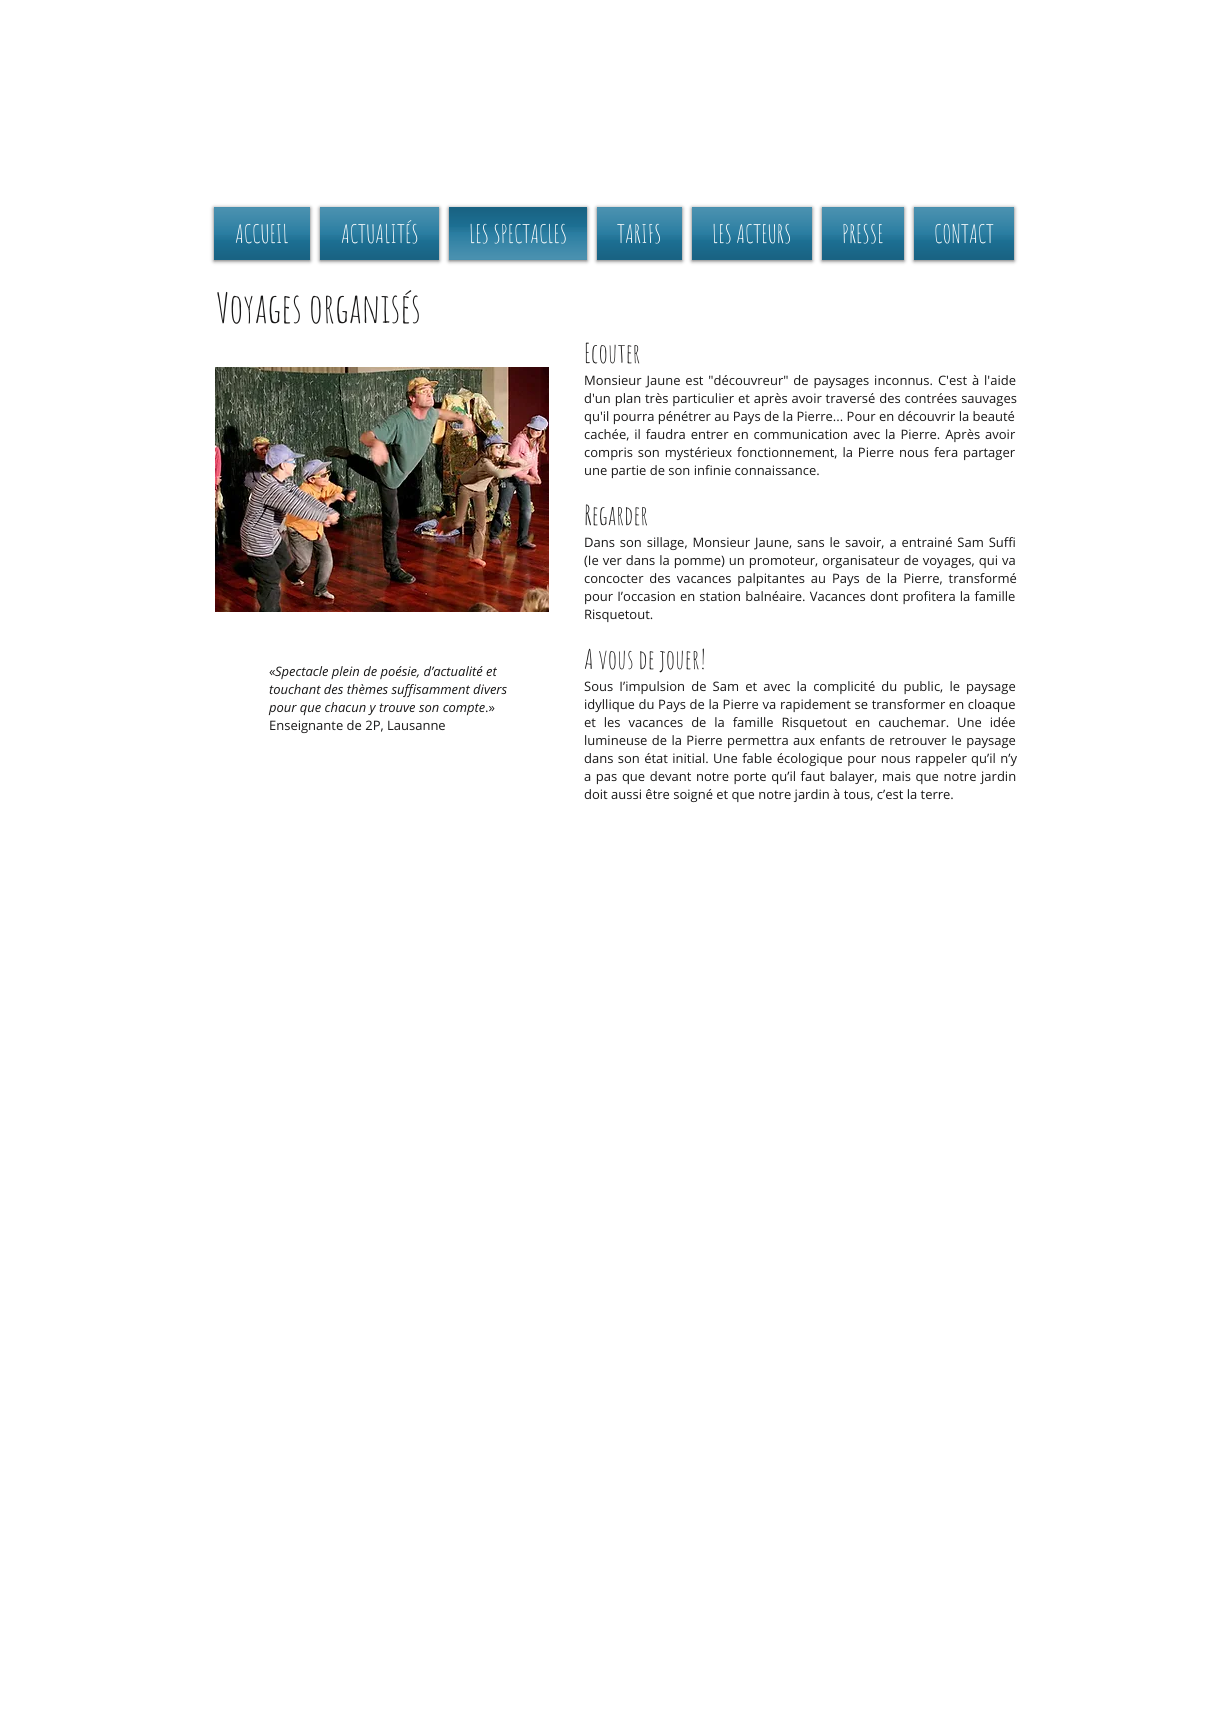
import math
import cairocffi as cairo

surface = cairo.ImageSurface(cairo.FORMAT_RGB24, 1216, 1713)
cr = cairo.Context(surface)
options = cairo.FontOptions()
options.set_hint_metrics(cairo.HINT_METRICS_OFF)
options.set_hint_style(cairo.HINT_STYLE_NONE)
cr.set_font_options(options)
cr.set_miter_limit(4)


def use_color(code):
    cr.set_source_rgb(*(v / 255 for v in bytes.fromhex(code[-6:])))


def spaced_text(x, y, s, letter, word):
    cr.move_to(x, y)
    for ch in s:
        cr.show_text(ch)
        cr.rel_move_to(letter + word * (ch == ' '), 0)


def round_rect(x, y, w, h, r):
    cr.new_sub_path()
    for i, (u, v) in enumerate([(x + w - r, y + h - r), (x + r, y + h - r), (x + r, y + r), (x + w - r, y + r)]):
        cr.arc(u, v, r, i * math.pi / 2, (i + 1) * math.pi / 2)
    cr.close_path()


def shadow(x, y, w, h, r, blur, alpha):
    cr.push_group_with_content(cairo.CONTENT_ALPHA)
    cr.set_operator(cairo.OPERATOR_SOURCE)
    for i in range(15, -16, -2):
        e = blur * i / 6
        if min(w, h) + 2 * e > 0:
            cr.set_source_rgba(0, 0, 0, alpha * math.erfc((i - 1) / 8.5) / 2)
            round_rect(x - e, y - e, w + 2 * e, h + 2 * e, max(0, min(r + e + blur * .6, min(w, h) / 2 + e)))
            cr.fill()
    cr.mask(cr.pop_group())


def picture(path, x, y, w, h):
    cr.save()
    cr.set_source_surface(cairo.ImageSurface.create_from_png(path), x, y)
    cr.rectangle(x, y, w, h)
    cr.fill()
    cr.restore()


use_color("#ffffff")
cr.paint()
use_color("#000000")
shadow(214, 208, 96, 53, 0, 2, 0.6)
use_color("#1e769c")
cr.rectangle(214, 207, 96, 53)
cr.fill()
picture("img1.png", 214, 207, 96, 33)
picture("img2.png", 214, 235, 96, 25)
cr.select_font_face("Amatic SC")
cr.set_font_size(25)
use_color("#ffffff")
cr.move_to(235, 243)
cr.show_text("ACCUEIL")
use_color("#000000")
shadow(320, 208, 119, 53, 0, 2, 0.6)
use_color("#1e769c")
cr.rectangle(320, 207, 119, 53)
cr.fill()
picture("img3.png", 320, 207, 119, 33)
picture("img4.png", 320, 235, 119, 25)
use_color("#ffffff")
cr.move_to(341, 243)
cr.show_text("ACTUALITÉS")
use_color("#000000")
shadow(449, 208, 138, 53, 0, 2, 0.6)
use_color("#1e769c")
cr.rectangle(449, 207, 138, 53)
cr.fill()
picture("img5.png", 449, 207, 138, 25)
picture("img6.png", 449, 227, 138, 33)
use_color("#ffffff")
cr.move_to(469, 243)
cr.show_text("LES SPECTACLES")
use_color("#000000")
shadow(597, 208, 85, 53, 0, 2, 0.6)
use_color("#1e769c")
cr.rectangle(597, 207, 85, 53)
cr.fill()
picture("img7.png", 597, 207, 85, 33)
picture("img8.png", 597, 235, 85, 25)
use_color("#ffffff")
cr.move_to(617, 243)
cr.show_text("TARIFS")
use_color("#000000")
shadow(692, 208, 120, 53, 0, 2, 0.6)
use_color("#1e769c")
cr.rectangle(692, 207, 120, 53)
cr.fill()
picture("img9.png", 692, 207, 120, 33)
picture("img10.png", 692, 235, 120, 25)
use_color("#ffffff")
cr.move_to(712, 243)
cr.show_text("LES ACTEURS")
use_color("#000000")
shadow(822, 208, 82, 53, 0, 2, 0.6)
use_color("#1e769c")
cr.rectangle(822, 207, 82, 53)
cr.fill()
picture("img11.png", 822, 207, 82, 33)
picture("img12.png", 822, 235, 82, 25)
use_color("#ffffff")
cr.move_to(842, 243)
cr.show_text("PRESSE")
use_color("#000000")
shadow(914, 208, 100, 53, 0, 2, 0.6)
use_color("#1e769c")
cr.rectangle(914, 207, 100, 53)
cr.fill()
picture("img13.png", 914, 207, 100, 33)
picture("img14.png", 914, 235, 100, 25)
use_color("#ffffff")
cr.move_to(934, 243)
cr.show_text("CONTACT")
cr.set_font_size(41)
use_color("#181717")
cr.move_to(216, 323)
cr.show_text("Voyages organisés")
picture("img15.png", 215, 367, 334, 245)
cr.set_font_size(27)
cr.move_to(584, 363)
cr.show_text("Ecouter")
cr.select_font_face("Open Sans")
cr.set_font_size(13)
spaced_text(584, 385, "Monsieur Jaune est \"découvreur\" de paysages inconnus. C'est à l'aide", 0, 1.5)
spaced_text(584, 403, "d'un plan très particulier et après avoir traversé des contrées sauvages", 0, 0.5)
cr.move_to(584, 421)
cr.show_text("qu'il pourra pénétrer au Pays de la Pierre... Pour en découvrir la beauté")
spaced_text(584, 439, "cachée, il faudra entrer en communication avec la Pierre. Après avoir", 0, 1.5)
spaced_text(584, 457, "compris son mystérieux fonctionnement, la Pierre nous fera partager", 0, 1.5)
cr.move_to(584, 475)
cr.show_text("une partie de son infinie connaissance.")
cr.select_font_face("Amatic SC")
cr.set_font_size(27)
cr.move_to(584, 525)
cr.show_text("Regarder")
cr.select_font_face("Open Sans")
cr.set_font_size(13)
spaced_text(584, 547, "Dans son sillage, Monsieur Jaune, sans le savoir, a entrainé Sam Suffi", 0, 1.5)
spaced_text(584, 565, "(Ie ver dans la pomme) un promoteur, organisateur de voyages, qui va", 0, 0.6)
spaced_text(584, 583, "concocter des vacances palpitantes au Pays de la Pierre, transformé", 0, 2.5)
spaced_text(584, 601, "pour I’occasion en station balnéaire. Vacances dont profitera la famille", 0, 0.75)
cr.move_to(584, 619)
cr.show_text("Risquetout.")
cr.select_font_face("Amatic SC")
cr.set_font_size(27)
cr.move_to(584, 669)
cr.show_text("A vous de jouer!")
cr.select_font_face("Open Sans")
cr.set_font_size(13)
spaced_text(584, 691, "Sous I’impulsion de Sam et avec la complicité du public, le paysage", 0, 2.75)
spaced_text(584, 709, "idyllique du Pays de la Pierre va rapidement se transformer en cloaque", 0, 0.25)
spaced_text(584, 727, "et les vacances de la famille Risquetout en cauchemar. Une idée", 0, 4.5)
spaced_text(584, 745, "lumineuse de la Pierre permettra aux enfants de retrouver Ie paysage", 0, 1)
spaced_text(584, 763, "dans son état initial. Une fable écologique pour nous rappeler qu’il n’y", 0, 1)
spaced_text(584, 781, "a pas que devant notre porte qu’il faut balayer, mais que notre jardin", 0, 1.25)
cr.move_to(584, 799)
cr.show_text("doit aussi être soigné et que notre jardin à tous, c’est la terre.")
cr.move_to(269, 676)
cr.show_text("«")
cr.select_font_face("Open Sans", cairo.FONT_SLANT_ITALIC)
cr.move_to(275, 676)
cr.show_text("Spectacle plein de poésie, d’actualité et")
cr.move_to(269, 694)
cr.show_text("touchant des thèmes suffisamment divers")
cr.move_to(269, 712)
cr.show_text("pour que chacun y trouve son compte")
cr.select_font_face("Open Sans")
cr.move_to(485, 712)
cr.show_text(".»")
cr.move_to(269, 730)
cr.show_text("Enseignante de 2P, Lausanne")
surface.write_to_png("result.png")
